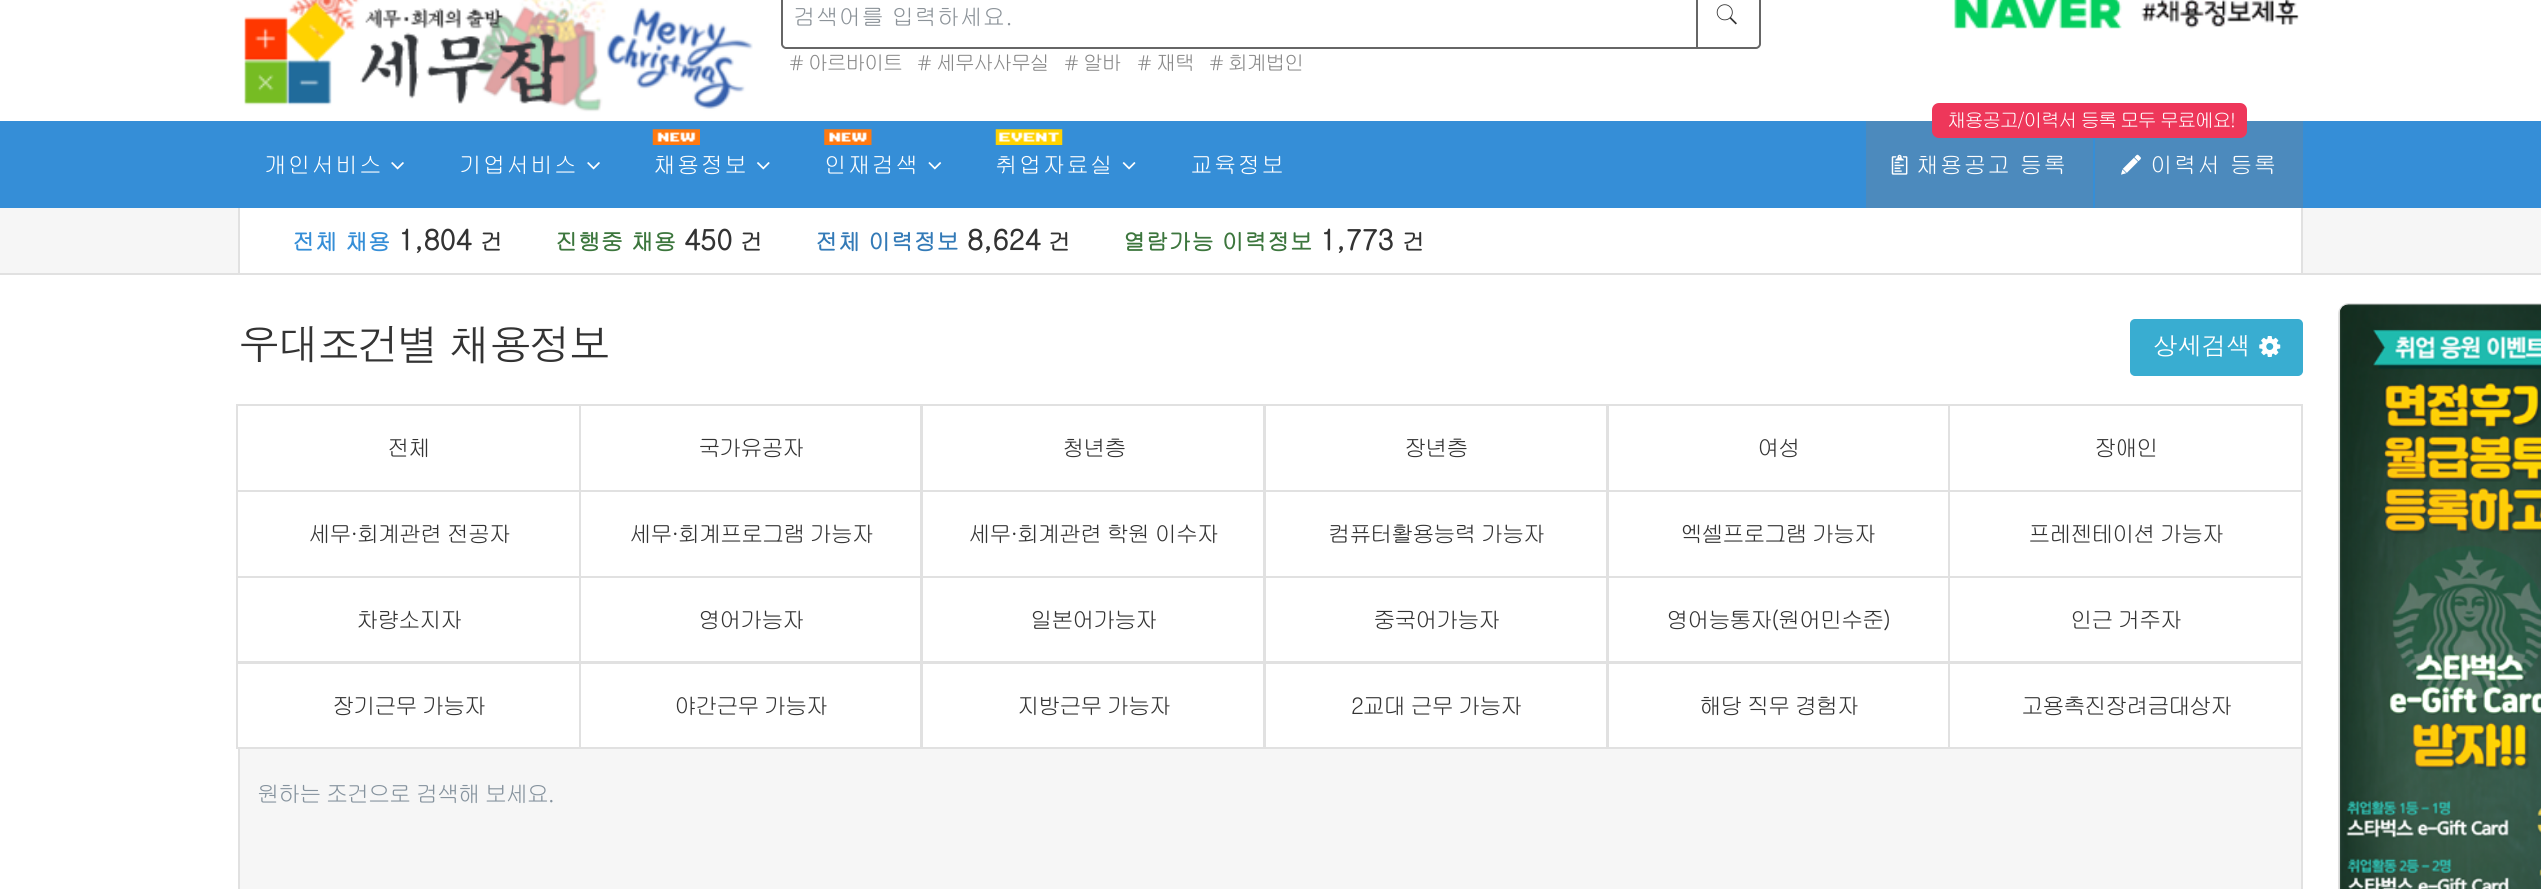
import math
import cairocffi as cairo

surface = cairo.ImageSurface(cairo.FORMAT_RGB24, 2541, 889)
cr = cairo.Context(surface)
options = cairo.FontOptions()
options.set_hint_metrics(cairo.HINT_METRICS_OFF)
options.set_hint_style(cairo.HINT_STYLE_NONE)
cr.set_font_options(options)
cr.set_miter_limit(4)


def use_color(code):
    cr.set_source_rgb(*(v / 255 for v in bytes.fromhex(code[-6:])))


def spaced_text(x, y, s, letter, word):
    cr.move_to(x, y)
    for ch in s:
        cr.show_text(ch)
        cr.rel_move_to(letter + word * (ch == ' '), 0)


def round_rect(x, y, w, h, r):
    cr.new_sub_path()
    for i, (u, v) in enumerate([(x + w - r, y + h - r), (x + r, y + h - r), (x + r, y + r), (x + w - r, y + r)]):
        cr.arc(u, v, r, i * math.pi / 2, (i + 1) * math.pi / 2)
    cr.close_path()


def picture(path, x, y, w, h):
    cr.save()
    cr.set_source_surface(cairo.ImageSurface.create_from_png(path), x, y)
    cr.rectangle(x, y, w, h)
    cr.fill()
    cr.restore()


use_color("#ffffff")
cr.paint()
picture("img1.png", 244, 0, 509, 112)
cr.new_path()
cr.move_to(1697, -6)
cr.line_to(1756, -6)
cr.curve_to(1758, -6, 1760, -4, 1760, -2)
cr.line_to(1760, 44)
cr.curve_to(1760, 46, 1758, 48, 1756, 48)
cr.line_to(1697, 48)
cr.close_path()
use_color("#666666")
cr.stroke()
use_color("#ffffff")
cr.new_path()
cr.move_to(786, -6)
cr.line_to(1697, -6)
cr.line_to(1697, 48)
cr.line_to(786, 48)
cr.curve_to(784, 48, 782, 46, 782, 44)
cr.line_to(782, -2)
cr.curve_to(782, -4, 784, -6, 786, -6)
cr.close_path()
cr.fill_preserve()
use_color("#666666")
cr.stroke()
cr.select_font_face("Gulim")
cr.set_font_size(22.75)
use_color("#8c9399")
cr.move_to(793, 25)
cr.show_text("검색어를 입력하세요.")
picture("img2.png", 1716, 4, 21, 21)
cr.set_font_size(20.5)
use_color("#888888")
spaced_text(789, 70, "# 아르바이트", -1.75, 0)
spaced_text(917, 70, "# 세무사사무실", -1.75, 0)
spaced_text(1064, 70, "# 알바", -1.75, 0)
spaced_text(1137, 70, "# 재택", -1.75, 0)
spaced_text(1209, 70, "# 회계법인", -1.75, 0)
picture("img3.png", 1954, 0, 345, 29)
use_color("#358ed7")
cr.rectangle(0, 121, 2541, 87)
cr.fill()
cr.set_font_size(22.75)
use_color("#ffffff")
spaced_text(264, 173, "개인서비스", 1, 0)
picture("img4.png", 391, 162, 13, 8)
spaced_text(459, 173, "기업서비스", 1, 0)
picture("img4.png", 587, 162, 13, 8)
picture("img5.png", 652, 129, 48, 16)
spaced_text(653, 173, "채용정보", 1, 0)
picture("img6.png", 757, 162, 13, 8)
picture("img7.png", 824, 129, 48, 16)
spaced_text(824, 173, "인재검색", 1, 0)
picture("img8.png", 928, 162, 14, 8)
picture("img9.png", 995, 129, 68, 16)
spaced_text(995, 173, "취업자료실", 1, 0)
picture("img10.png", 1122, 162, 14, 8)
spaced_text(1190, 173, "교육정보", 1, 0)
use_color("#4c8abd")
cr.rectangle(1866, 121, 227, 87)
cr.fill()
cr.rectangle(2095, 121, 208, 87)
cr.fill()
use_color("#ee375a")
round_rect(1932, 103, 315, 35, 7)
cr.fill()
cr.set_font_size(19.25)
use_color("#ffffff")
spaced_text(1947, 127, "채용공고/이력서 등록 모두 무료에요!", -1.75, 0)
picture("img11.png", 1891, 154, 17, 21)
cr.set_font_size(22.75)
spaced_text(1916, 173, "채용공고 등록", 1, 0)
picture("img12.png", 2121, 154, 20, 21)
spaced_text(2150, 173, "이력서 등록", 1, 0)
use_color("#f6f6f6")
cr.rectangle(0, 208, 2541, 65)
cr.fill()
use_color("#e1e1e1")
cr.rectangle(0, 273, 2541, 2)
cr.fill()
use_color("#ffffff")
cr.rectangle(240, 208, 2061, 65)
cr.fill()
use_color("#e1e1e1")
cr.rectangle(2301, 208, 2, 65)
cr.fill()
cr.rectangle(238, 208, 2, 65)
cr.fill()
cr.select_font_face("Gulim", cairo.FONT_SLANT_NORMAL, cairo.FONT_WEIGHT_BOLD)
use_color("#358ed7")
cr.move_to(292, 250)
cr.show_text("전체 채용")
cr.set_font_size(28)
use_color("#333333")
cr.move_to(398, 250)
cr.show_text("1,804")
cr.set_font_size(22.75)
cr.move_to(480, 250)
cr.show_text("건")
use_color("#3c763d")
cr.move_to(555, 250)
cr.show_text("진행중 채용")
cr.set_font_size(28)
use_color("#333333")
cr.move_to(684, 250)
cr.show_text("450")
cr.set_font_size(22.75)
cr.move_to(740, 250)
cr.show_text("건")
use_color("#337ab7")
cr.move_to(815, 250)
cr.show_text("전체 이력정보")
cr.set_font_size(28)
use_color("#333333")
cr.move_to(967, 250)
cr.show_text("8,624")
cr.set_font_size(22.75)
cr.move_to(1048, 250)
cr.show_text("건")
use_color("#3c763d")
cr.move_to(1123, 250)
cr.show_text("열람가능 이력정보")
cr.set_font_size(28)
use_color("#333333")
cr.move_to(1320, 250)
cr.show_text("1,773")
cr.set_font_size(22.75)
cr.move_to(1402, 250)
cr.show_text("건")
cr.select_font_face("Dotum")
cr.set_font_size(42)
spaced_text(238, 360, "우대조건별 채용정보", -2.1, 0)
use_color("#39add1")
round_rect(2131, 320, 171, 55, 4)
cr.fill_preserve()
cr.stroke()
cr.set_font_size(24.5)
use_color("#ffffff")
cr.move_to(2153, 355)
cr.show_text("상세검색")
picture("img13.png", 2259, 336, 22, 21)
cr.rectangle(237, 405, 343, 86)
use_color("#e1e1e1")
cr.stroke()
cr.select_font_face("Gulim")
cr.set_font_size(22.75)
use_color("#333333")
spaced_text(387, 456, "전체", -1.75, 0)
cr.rectangle(580, 405, 341, 86)
use_color("#e1e1e1")
cr.stroke()
use_color("#333333")
spaced_text(698, 456, "국가유공자", -1.75, 0)
cr.rectangle(922, 405, 342, 86)
use_color("#e1e1e1")
cr.stroke()
use_color("#333333")
spaced_text(1062, 456, "청년층", -1.75, 0)
cr.rectangle(1265, 405, 342, 86)
use_color("#e1e1e1")
cr.stroke()
use_color("#333333")
spaced_text(1404, 456, "장년층", -1.75, 0)
cr.rectangle(1608, 405, 341, 86)
use_color("#e1e1e1")
cr.stroke()
use_color("#333333")
spaced_text(1757, 456, "여성", -1.75, 0)
cr.rectangle(1949, 405, 353, 86)
use_color("#e1e1e1")
cr.stroke()
use_color("#333333")
spaced_text(2094, 456, "장애인", -1.75, 0)
cr.rectangle(237, 491, 343, 86)
use_color("#e1e1e1")
cr.stroke()
use_color("#333333")
spaced_text(308, 542, "세무·회계관련 전공자", -1.75, 0)
cr.rectangle(580, 491, 341, 86)
use_color("#e1e1e1")
cr.stroke()
use_color("#333333")
spaced_text(629, 542, "세무·회계프로그램 가능자", -1.75, 0)
cr.rectangle(922, 491, 342, 86)
use_color("#e1e1e1")
cr.stroke()
use_color("#333333")
spaced_text(968, 542, "세무·회계관련 학원 이수자", -1.75, 0)
cr.rectangle(1265, 491, 342, 86)
use_color("#e1e1e1")
cr.stroke()
use_color("#333333")
spaced_text(1328, 542, "컴퓨터활용능력 가능자", -1.75, 0)
cr.rectangle(1608, 491, 341, 86)
use_color("#e1e1e1")
cr.stroke()
use_color("#333333")
spaced_text(1680, 542, "엑셀프로그램 가능자", -1.75, 0)
cr.rectangle(1949, 491, 353, 86)
use_color("#e1e1e1")
cr.stroke()
use_color("#333333")
spaced_text(2028, 542, "프레젠테이션 가능자", -1.75, 0)
cr.rectangle(237, 577, 343, 85)
use_color("#e1e1e1")
cr.stroke()
use_color("#333333")
spaced_text(356, 628, "차량소지자", -1.75, 0)
cr.rectangle(580, 577, 341, 85)
use_color("#e1e1e1")
cr.stroke()
use_color("#333333")
spaced_text(698, 628, "영어가능자", -1.75, 0)
cr.rectangle(922, 577, 342, 85)
use_color("#e1e1e1")
cr.stroke()
use_color("#333333")
spaced_text(1030, 628, "일본어가능자", -1.75, 0)
cr.rectangle(1265, 577, 342, 85)
use_color("#e1e1e1")
cr.stroke()
use_color("#333333")
spaced_text(1373, 628, "중국어가능자", -1.75, 0)
cr.rectangle(1608, 577, 341, 85)
use_color("#e1e1e1")
cr.stroke()
use_color("#333333")
spaced_text(1666, 628, "영어능통자(원어민수준)", -1.75, 0)
cr.rectangle(1949, 577, 353, 85)
use_color("#e1e1e1")
cr.stroke()
use_color("#333333")
spaced_text(2070, 628, "인근 거주자", -1.75, 0)
use_color("#f6f6f6")
cr.rectangle(239, 748, 2063, 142)
cr.fill_preserve()
use_color("#e1e1e1")
cr.stroke()
cr.rectangle(237, 663, 343, 85)
cr.stroke()
use_color("#333333")
spaced_text(332, 714, "장기근무 가능자", -1.75, 0)
cr.rectangle(580, 663, 341, 85)
use_color("#e1e1e1")
cr.stroke()
use_color("#333333")
spaced_text(674, 714, "야간근무 가능자", -1.75, 0)
cr.rectangle(922, 663, 342, 85)
use_color("#e1e1e1")
cr.stroke()
use_color("#333333")
spaced_text(1017, 714, "지방근무 가능자", -1.75, 0)
cr.rectangle(1265, 663, 342, 85)
use_color("#e1e1e1")
cr.stroke()
use_color("#333333")
spaced_text(1351, 714, "2교대 근무 가능자", -1.75, 0)
cr.rectangle(1608, 663, 341, 85)
use_color("#e1e1e1")
cr.stroke()
use_color("#333333")
spaced_text(1699, 714, "해당 직무 경험자", -1.75, 0)
cr.rectangle(1949, 663, 353, 85)
use_color("#e1e1e1")
cr.stroke()
use_color("#333333")
spaced_text(2021, 714, "고용촉진장려금대상자", -1.75, 0)
use_color("#86939e")
spaced_text(257, 802, "원하는 조건으로 검색해 보세요.", -1.75, 0)
round_rect(2339, 304, 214, 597, 10)
use_color("#e1e1e1")
cr.stroke()
picture("img14.png", 2339, 304, 202, 585)
surface.write_to_png("result.png")
